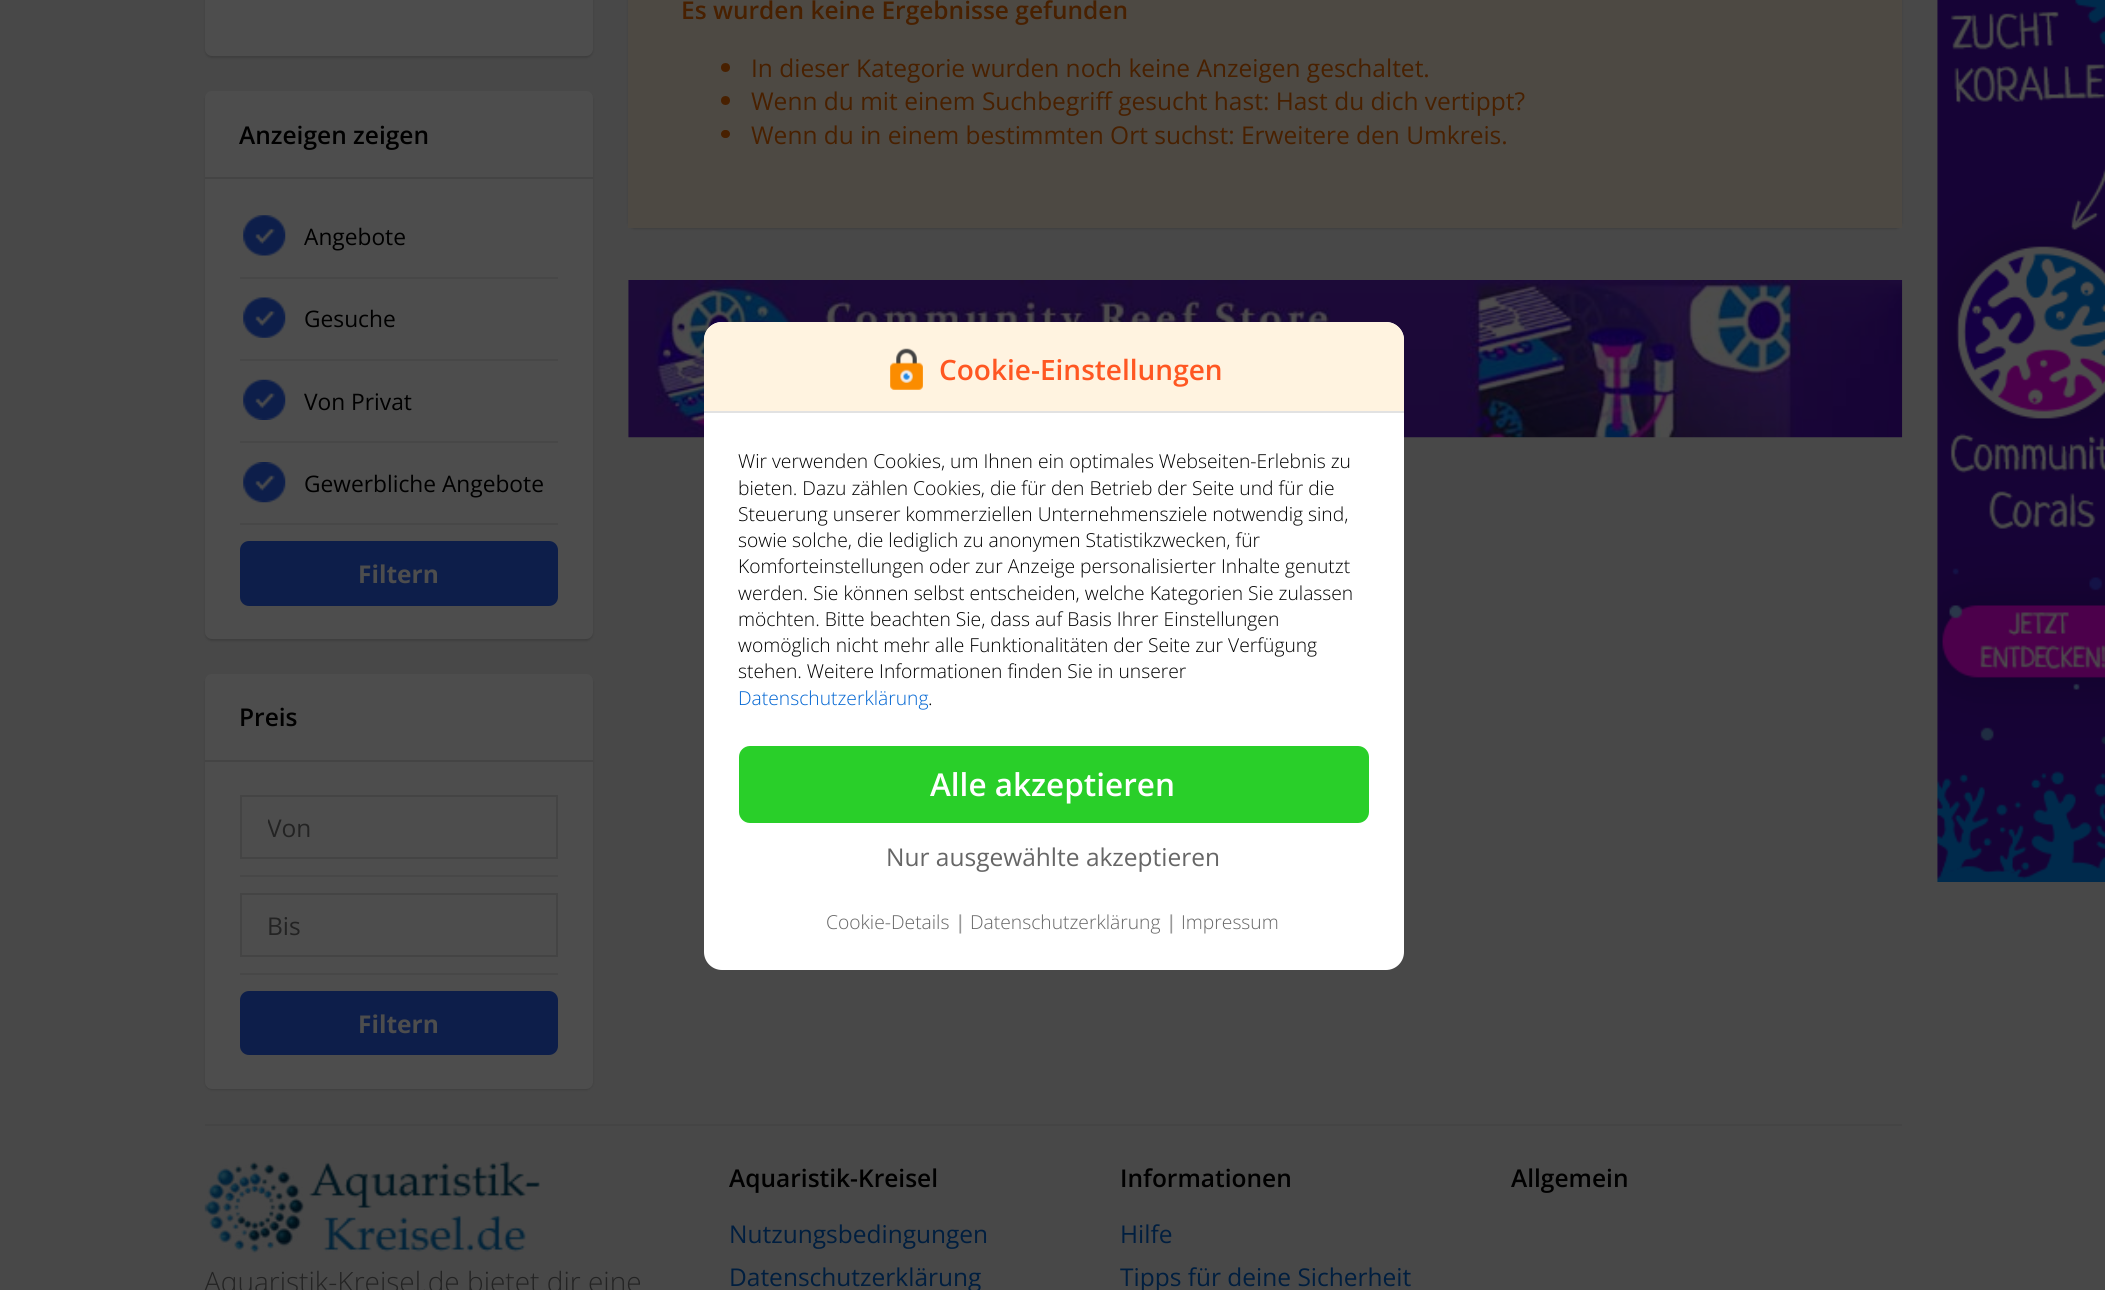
import math
import cairocffi as cairo

surface = cairo.ImageSurface(cairo.FORMAT_RGB24, 2105, 1290)
cr = cairo.Context(surface)
options = cairo.FontOptions()
options.set_hint_metrics(cairo.HINT_METRICS_OFF)
options.set_hint_style(cairo.HINT_STYLE_NONE)
cr.set_font_options(options)
cr.set_miter_limit(4)


def use_color(code):
    cr.set_source_rgb(*(v / 255 for v in bytes.fromhex(code[-6:])))


def round_rect(x, y, w, h, r):
    cr.new_sub_path()
    for i, (u, v) in enumerate([(x + w - r, y + h - r), (x + r, y + h - r), (x + r, y + r), (x + w - r, y + r)]):
        cr.arc(u, v, r, i * math.pi / 2, (i + 1) * math.pi / 2)
    cr.close_path()


def shadow(x, y, w, h, r, blur, alpha):
    cr.push_group_with_content(cairo.CONTENT_ALPHA)
    cr.set_operator(cairo.OPERATOR_SOURCE)
    for i in range(15, -16, -2):
        e = blur * i / 6
        if min(w, h) + 2 * e > 0:
            cr.set_source_rgba(0, 0, 0, alpha * math.erfc((i - 1) / 8.5) / 2)
            round_rect(x - e, y - e, w + 2 * e, h + 2 * e, max(0, min(r + e + blur * .6, min(w, h) / 2 + e)))
            cr.fill()
    cr.mask(cr.pop_group())


def picture(path, x, y, w, h):
    cr.save()
    cr.set_source_surface(cairo.ImageSurface.create_from_png(path), x, y)
    cr.rectangle(x, y, w, h)
    cr.fill()
    cr.restore()


use_color("#484848")
cr.paint()
use_color("#000000")
shadow(205, -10, 388, 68, 7, 1, 0.14)
use_color("#4d4d4d")
round_rect(205, -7, 388, 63, 7)
cr.fill()
use_color("#000000")
shadow(205, 93, 388, 548, 7, 1, 0.14)
use_color("#4d4d4d")
round_rect(205, 91, 388, 548, 7)
cr.fill()
use_color("#444444")
cr.rectangle(205, 177, 388, 2)
cr.fill()
cr.select_font_face("Open Sans SemiBold")
cr.set_font_size(24.5)
use_color("#000000")
cr.move_to(239, 144)
cr.show_text("Anzeigen zeigen")
use_color("#474747")
cr.rectangle(240, 277, 318, 2)
cr.fill()
picture("img1.png", 243, 215, 43, 41)
cr.select_font_face("Open Sans")
cr.set_font_size(22.75)
use_color("#000000")
cr.move_to(304, 245)
cr.show_text("Angebote")
use_color("#474747")
cr.rectangle(240, 359, 318, 2)
cr.fill()
picture("img2.png", 243, 297, 43, 41)
use_color("#000000")
cr.move_to(304, 327)
cr.show_text("Gesuche")
use_color("#474747")
cr.rectangle(240, 441, 318, 2)
cr.fill()
picture("img3.png", 243, 379, 43, 41)
use_color("#000000")
cr.move_to(304, 410)
cr.show_text("Von Privat")
use_color("#474747")
cr.rectangle(240, 523, 318, 2)
cr.fill()
picture("img4.png", 243, 462, 43, 41)
use_color("#000000")
cr.move_to(304, 492)
cr.show_text("Gewerbliche Angebote")
use_color("#0d1e4a")
round_rect(242, 543, 314, 61, 7)
cr.fill_preserve()
cr.set_line_width(4)
cr.stroke()
cr.select_font_face("Open Sans", cairo.FONT_SLANT_NORMAL, cairo.FONT_WEIGHT_BOLD)
cr.set_font_size(24.5)
use_color("#4d4d4d")
cr.move_to(358, 583)
cr.show_text("Filtern")
use_color("#000000")
shadow(205, 676, 388, 414, 7, 1, 0.14)
use_color("#4d4d4d")
round_rect(205, 674, 388, 415, 7)
cr.fill()
use_color("#444444")
cr.rectangle(205, 760, 388, 2)
cr.fill()
cr.select_font_face("Open Sans SemiBold")
use_color("#000000")
cr.move_to(239, 726)
cr.show_text("Preis")
use_color("#474747")
cr.rectangle(240, 875, 318, 2)
cr.fill()
cr.rectangle(241, 796, 316, 62)
use_color("#444444")
cr.set_line_width(2)
cr.stroke()
cr.save()
cr.rectangle(268, 810, 262, 34)
cr.clip()
cr.select_font_face("Open Sans")
use_color("#232323")
cr.move_to(267, 837)
cr.show_text("Von")
cr.restore()
use_color("#474747")
cr.rectangle(240, 973, 318, 2)
cr.fill()
cr.rectangle(241, 894, 316, 62)
use_color("#444444")
cr.stroke()
cr.select_font_face("Open Sans")
use_color("#232323")
cr.move_to(267, 935)
cr.show_text("Bis")
use_color("#0d1e4a")
round_rect(242, 993, 314, 60, 7)
cr.fill_preserve()
cr.set_line_width(4)
cr.stroke()
cr.select_font_face("Open Sans", cairo.FONT_SLANT_NORMAL, cairo.FONT_WEIGHT_BOLD)
use_color("#4d4d4d")
cr.move_to(358, 1033)
cr.show_text("Filtern")
use_color("#000000")
shadow(628, -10, 1274, 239, 7, 1, 0.14)
use_color("#4d4943")
cr.rectangle(628, 0, 1274, 228)
cr.fill()
cr.select_font_face("Open Sans SemiBold")
use_color("#482000")
cr.move_to(681, 19)
cr.show_text("Es wurden keine Ergebnisse gefunden")
cr.new_path()
cr.arc(725.5, 67.5, 4.5, 0, 2 * math.pi)
cr.fill()
cr.select_font_face("Open Sans")
cr.move_to(751, 77)
cr.show_text("In dieser Kategorie wurden noch keine Anzeigen geschaltet.")
cr.new_path()
cr.arc(725.5, 100.5, 4.5, 0, 2 * math.pi)
cr.fill()
cr.move_to(751, 110)
cr.show_text("Wenn du mit einem Suchbegriff gesucht hast: Hast du dich vertippt?")
round_rect(721, 130, 9, 8, 4)
cr.fill()
cr.move_to(751, 144)
cr.show_text("Wenn du in einem bestimmten Ort suchst: Erweitere den Umkreis.")
picture("img5.png", 628, 280, 1275, 158)
picture("img6.png", 1937, 0, 168, 882)
use_color("#ffffff")
round_rect(704, 322, 700, 648, 18)
cr.fill()
use_color("#fff3e0")
cr.new_path()
cr.move_to(722, 322)
cr.line_to(1386, 322)
cr.curve_to(1396, 322, 1404, 330, 1404, 340)
cr.line_to(1404, 413)
cr.line_to(704, 413)
cr.line_to(704, 340)
cr.curve_to(704, 330, 712, 322, 722, 322)
cr.close_path()
cr.fill()
use_color("#e2e2e2")
cr.rectangle(704, 411, 700, 2)
cr.fill()
picture("img7.png", 890, 348, 33, 42)
cr.select_font_face("Open Sans SemiBold")
cr.set_font_size(28)
use_color("#ff5722")
cr.move_to(939, 380)
cr.show_text("Cookie-Einstellungen")
cr.select_font_face("Open Sans Light")
cr.set_font_size(19.25)
use_color("#000000")
cr.move_to(738, 468)
cr.show_text("Wir verwenden Cookies, um Ihnen ein optimales Webseiten-Erlebnis zu")
cr.move_to(738, 495)
cr.show_text("bieten. Dazu zählen Cookies, die für den Betrieb der Seite und für die")
cr.move_to(738, 521)
cr.show_text("Steuerung unserer kommerziellen Unternehmensziele notwendig sind,")
cr.move_to(738, 547)
cr.show_text("sowie solche, die lediglich zu anonymen Statistikzwecken, für")
cr.move_to(738, 573)
cr.show_text("Komforteinstellungen oder zur Anzeige personalisierter Inhalte genutzt")
cr.move_to(738, 600)
cr.show_text("werden. Sie können selbst entscheiden, welche Kategorien Sie zulassen")
cr.move_to(738, 626)
cr.show_text("möchten. Bitte beachten Sie, dass auf Basis Ihrer Einstellungen")
cr.move_to(738, 652)
cr.show_text("womöglich nicht mehr alle Funktionalitäten der Seite zur Verfügung")
cr.move_to(738, 678)
cr.show_text("stehen. Weitere Informationen finden Sie in unserer")
use_color("#0165d2")
cr.move_to(738, 705)
cr.show_text("Datenschutzerklärung")
use_color("#000000")
cr.move_to(928, 705)
cr.show_text(".")
use_color("#29cf29")
round_rect(739, 746, 630, 77, 11)
cr.fill()
cr.select_font_face("Open Sans SemiBold")
cr.set_font_size(31.5)
use_color("#ffffff")
cr.move_to(930, 796)
cr.show_text("Alle akzeptieren")
cr.select_font_face("Open Sans")
cr.set_font_size(24.5)
use_color("#666666")
cr.move_to(886, 866)
cr.show_text("Nur ausgewählte akzeptieren")
cr.select_font_face("Open Sans Light")
cr.set_font_size(19.25)
cr.move_to(826, 929)
cr.show_text("Cookie-Details")
cr.select_font_face("Open Sans SemiBold")
use_color("#999999")
cr.move_to(955, 929)
cr.show_text("|")
cr.select_font_face("Open Sans Light")
use_color("#666666")
cr.move_to(970, 929)
cr.show_text("Datenschutzerklärung")
cr.select_font_face("Open Sans SemiBold")
use_color("#999999")
cr.move_to(1166, 929)
cr.show_text("|")
cr.select_font_face("Open Sans Light")
use_color("#666666")
cr.move_to(1181, 929)
cr.show_text("Impressum")
use_color("#444444")
cr.rectangle(205, 1124, 1697, 2)
cr.fill()
picture("img8.png", 204, 1161, 336, 92)
cr.set_font_size(28)
use_color("#232323")
cr.move_to(204, 1292)
cr.show_text("Aquaristik-Kreisel.de bietet dir eine")
cr.select_font_face("Open Sans SemiBold")
cr.set_font_size(24.5)
use_color("#000000")
cr.move_to(729, 1187)
cr.show_text("Aquaristik-Kreisel")
cr.select_font_face("Open Sans")
use_color("#001e3f")
cr.move_to(729, 1243)
cr.show_text("Nutzungsbedingungen")
cr.move_to(729, 1286)
cr.show_text("Datenschutzerklärung")
cr.select_font_face("Open Sans SemiBold")
use_color("#000000")
cr.move_to(1120, 1187)
cr.show_text("Informationen")
cr.select_font_face("Open Sans")
use_color("#001e3f")
cr.move_to(1120, 1243)
cr.show_text("Hilfe")
cr.move_to(1120, 1286)
cr.show_text("Tipps für deine Sicherheit")
cr.select_font_face("Open Sans SemiBold")
use_color("#000000")
cr.move_to(1511, 1187)
cr.show_text("Allgemein")
surface.write_to_png("result.png")
